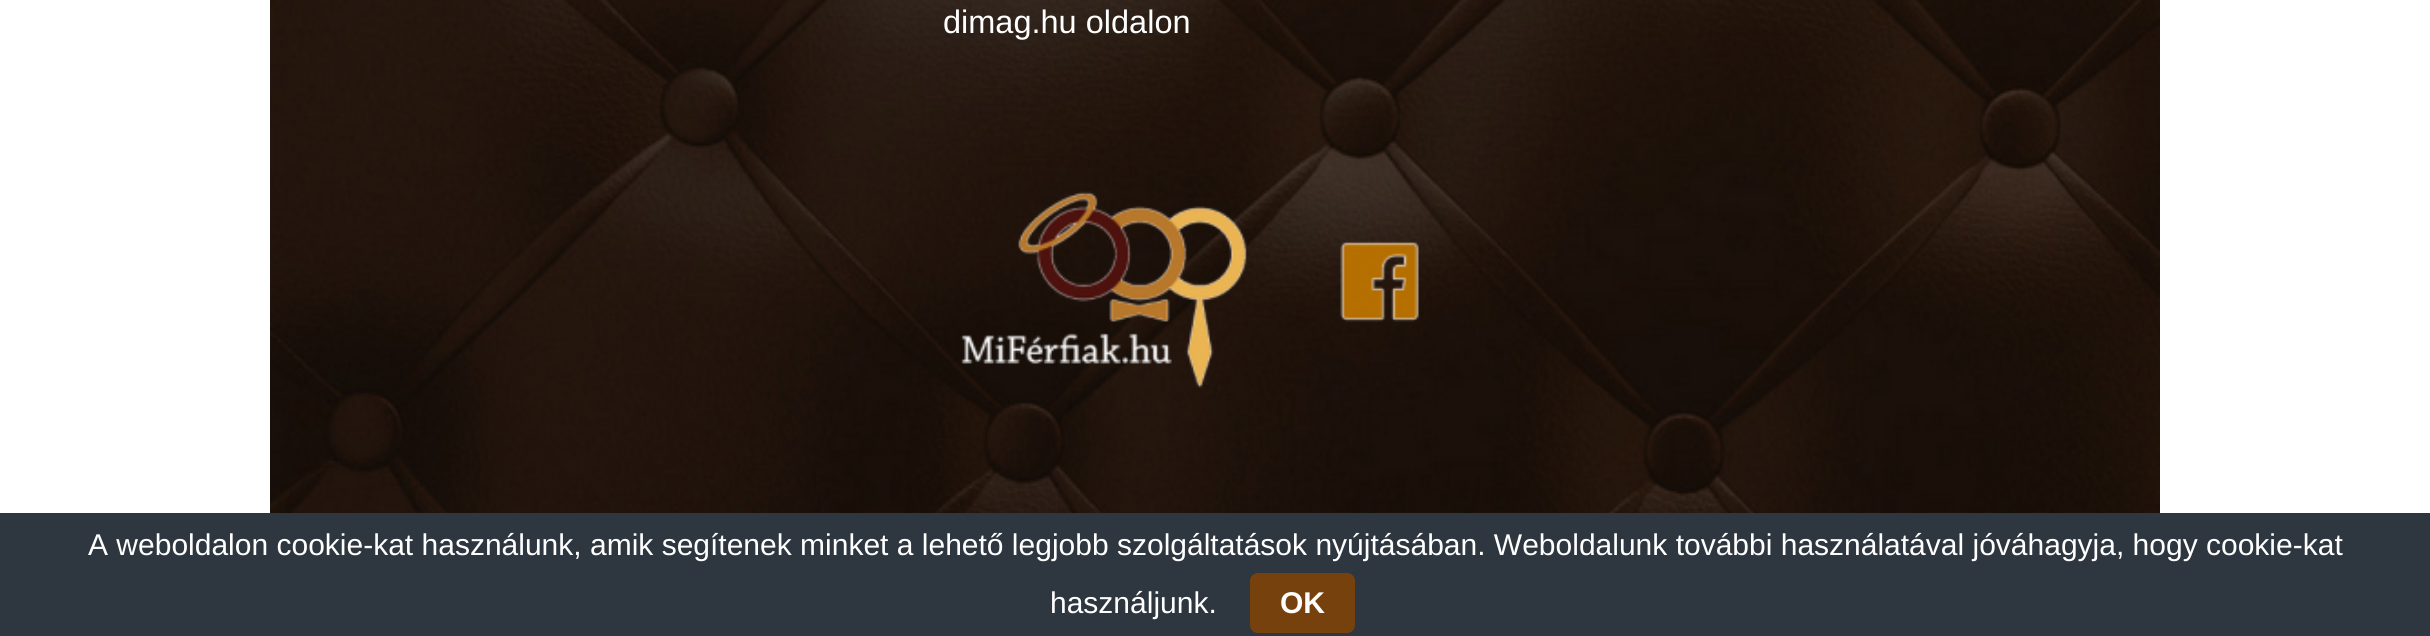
import math
import cairocffi as cairo

surface = cairo.ImageSurface(cairo.FORMAT_RGB24, 2430, 636)
cr = cairo.Context(surface)
options = cairo.FontOptions()
options.set_hint_metrics(cairo.HINT_METRICS_OFF)
options.set_hint_style(cairo.HINT_STYLE_NONE)
cr.set_font_options(options)
cr.set_miter_limit(4)


def use_color(code):
    cr.set_source_rgb(*(v / 255 for v in bytes.fromhex(code[-6:])))


def round_rect(x, y, w, h, r):
    cr.new_sub_path()
    for i, (u, v) in enumerate([(x + w - r, y + h - r), (x + r, y + h - r), (x + r, y + r), (x + w - r, y + r)]):
        cr.arc(u, v, r, i * math.pi / 2, (i + 1) * math.pi / 2)
    cr.close_path()


def picture(path, x, y, w, h):
    cr.save()
    cr.set_source_surface(cairo.ImageSurface.create_from_png(path), x, y)
    cr.rectangle(x, y, w, h)
    cr.fill()
    cr.restore()


use_color("#ffffff")
cr.paint()
picture("img1.png", 270, 0, 1890, 513)
cr.select_font_face("Liberation Sans")
cr.set_font_size(32.5)
use_color("#ffffff")
cr.move_to(943, 33)
cr.show_text("dimag.hu oldalon")
picture("img2.png", 960, 191, 459, 197)
use_color("#2e363f")
cr.rectangle(0, 513, 2430, 123)
cr.fill()
cr.set_font_size(30)
use_color("#ffffff")
cr.move_to(88, 555)
cr.show_text("A weboldalon cookie-kat használunk, amik segítenek minket a lehető legjobb szolgáltatások nyújtásában. Weboldalunk további használatával jóváhagyja, hogy cookie-kat")
cr.move_to(1050, 613)
cr.show_text("használjunk.")
use_color("#77410e")
round_rect(1250, 573, 105, 60, 8)
cr.fill()
cr.select_font_face("Liberation Sans", cairo.FONT_SLANT_NORMAL, cairo.FONT_WEIGHT_BOLD)
use_color("#ffffff")
cr.move_to(1280, 613)
cr.show_text("OK")
surface.write_to_png("result.png")
